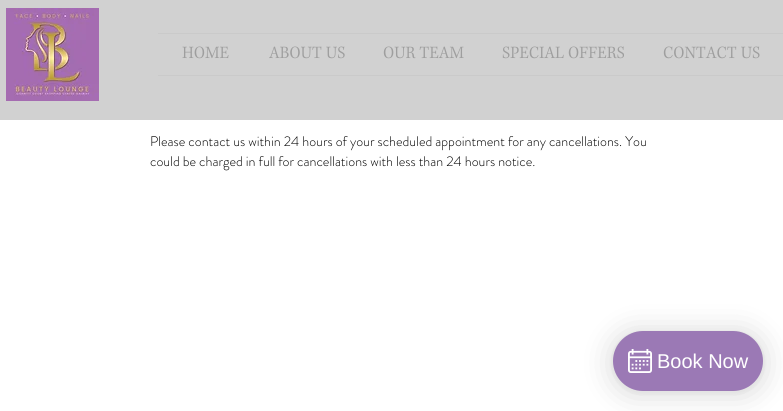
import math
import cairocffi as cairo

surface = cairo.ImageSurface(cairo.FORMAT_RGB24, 783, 411)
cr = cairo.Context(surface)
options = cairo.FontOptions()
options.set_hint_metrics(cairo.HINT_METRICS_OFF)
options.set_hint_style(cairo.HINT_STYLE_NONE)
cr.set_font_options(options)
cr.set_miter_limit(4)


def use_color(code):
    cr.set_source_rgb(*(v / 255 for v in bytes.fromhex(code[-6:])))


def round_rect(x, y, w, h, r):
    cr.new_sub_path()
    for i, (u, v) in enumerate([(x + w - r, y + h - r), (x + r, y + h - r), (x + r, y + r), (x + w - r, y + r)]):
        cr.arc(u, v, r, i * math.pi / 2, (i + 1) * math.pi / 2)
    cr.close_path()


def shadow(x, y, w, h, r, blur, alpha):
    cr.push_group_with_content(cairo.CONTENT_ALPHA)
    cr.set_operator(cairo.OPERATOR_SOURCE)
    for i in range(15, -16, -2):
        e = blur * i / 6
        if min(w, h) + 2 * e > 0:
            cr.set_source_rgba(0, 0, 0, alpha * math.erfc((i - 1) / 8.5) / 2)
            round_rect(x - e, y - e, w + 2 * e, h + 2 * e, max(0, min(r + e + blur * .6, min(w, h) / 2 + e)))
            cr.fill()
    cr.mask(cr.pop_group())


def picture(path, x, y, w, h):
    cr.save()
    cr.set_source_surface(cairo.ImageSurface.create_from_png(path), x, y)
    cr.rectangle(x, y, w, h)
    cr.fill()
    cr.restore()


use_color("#ffffff")
cr.paint()
use_color("#d1d1d1")
cr.rectangle(0, 0, 783, 120)
cr.fill()
picture("img1.png", 6, 8, 93, 93)
use_color("#cacaca")
cr.rectangle(158, 33, 625, 1)
cr.fill()
cr.rectangle(158, 75, 625, 1)
cr.fill()
picture("img2.png", 182, 46, 47, 13)
picture("img3.png", 269, 46, 76, 13)
picture("img4.png", 383, 46, 81, 13)
picture("img5.png", 502, 46, 122, 13)
picture("img6.png", 663, 46, 97, 13)
cr.select_font_face("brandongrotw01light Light")
cr.set_font_size(14)
use_color("#000000")
cr.move_to(150, 146)
cr.show_text("Please contact us within 24 hours of your scheduled appointment for any cancellations. You")
cr.move_to(150, 166)
cr.show_text("could be charged in full for cancellations with less than 24 hours notice.")
use_color("#000000")
shadow(613, 333, 150, 60, 30, 16, 0.16)
shadow(613, 332, 150, 60, 30, 3, 0.06)
use_color("#9b79b5")
round_rect(613, 331, 150, 60, 30)
cr.fill()
picture("img7.png", 628, 349, 24, 24)
cr.select_font_face("Liberation Sans")
cr.set_font_size(20)
use_color("#ffffff")
cr.move_to(657, 368)
cr.show_text("Book Now")
surface.write_to_png("result.png")
